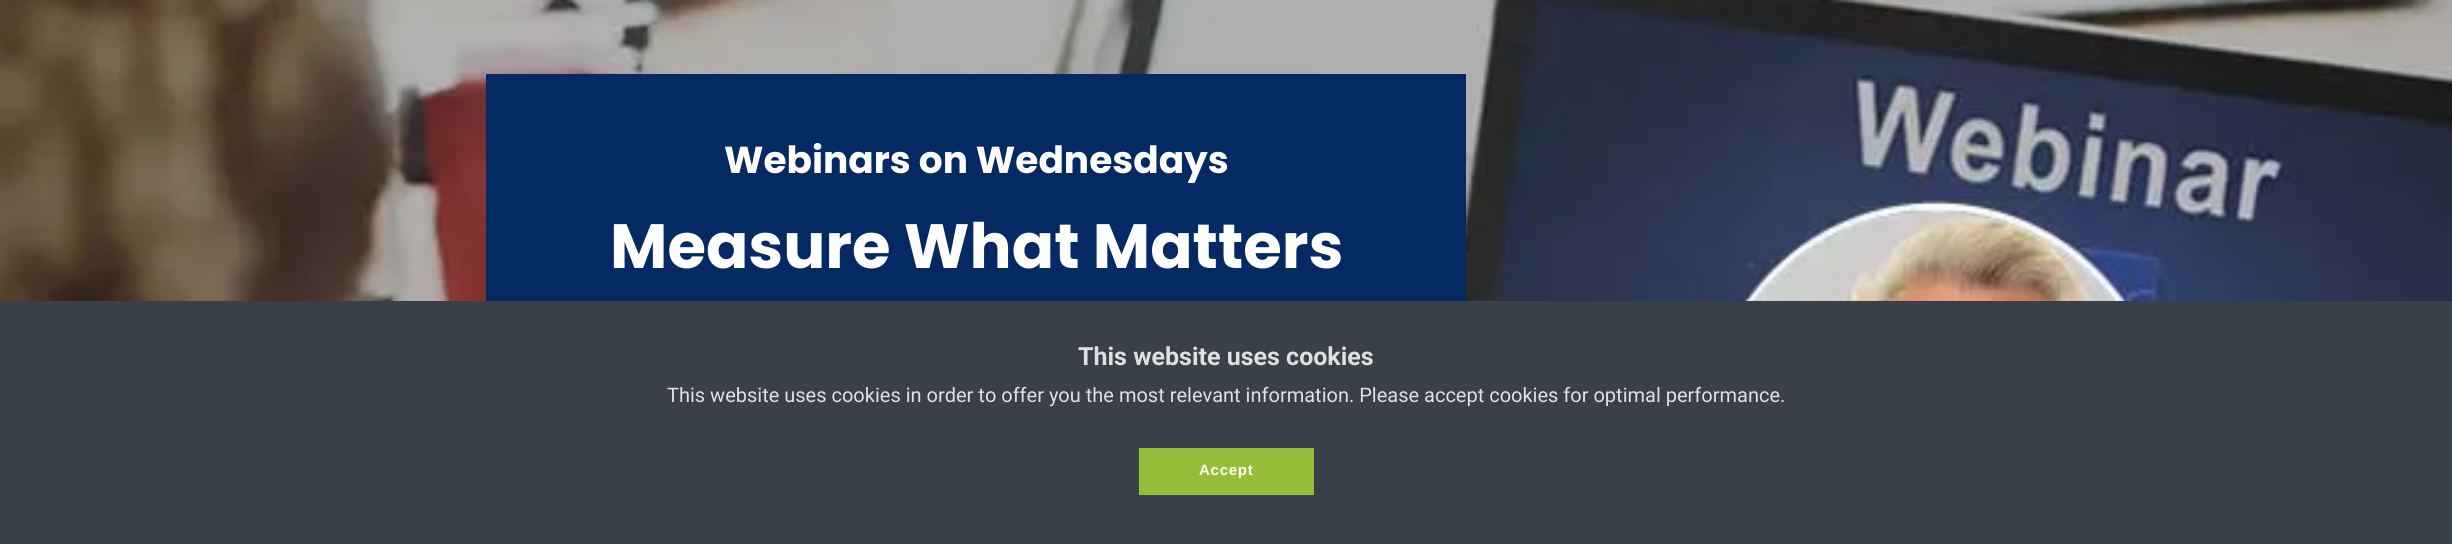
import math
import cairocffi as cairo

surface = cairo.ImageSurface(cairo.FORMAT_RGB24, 2452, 544)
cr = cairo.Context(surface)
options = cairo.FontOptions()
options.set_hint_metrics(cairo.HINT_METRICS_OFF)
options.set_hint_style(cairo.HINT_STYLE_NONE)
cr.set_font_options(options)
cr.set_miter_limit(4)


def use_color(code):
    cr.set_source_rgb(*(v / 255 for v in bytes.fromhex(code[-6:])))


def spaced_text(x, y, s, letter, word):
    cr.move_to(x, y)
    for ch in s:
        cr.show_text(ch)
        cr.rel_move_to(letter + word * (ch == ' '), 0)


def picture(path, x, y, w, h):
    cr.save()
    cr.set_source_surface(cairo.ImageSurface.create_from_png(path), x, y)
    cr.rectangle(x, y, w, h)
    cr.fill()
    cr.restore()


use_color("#ffffff")
cr.paint()
picture("img1.png", 0, 0, 2452, 301)
use_color("#052962")
cr.rectangle(486, 74, 980, 227)
cr.fill()
cr.select_font_face("Poppins", cairo.FONT_SLANT_NORMAL, cairo.FONT_WEIGHT_BOLD)
cr.set_font_size(37.5)
use_color("#ffffff")
cr.move_to(724, 173)
cr.show_text("Webinars on Wednesdays")
cr.set_font_size(62.5)
cr.move_to(610, 268)
cr.show_text("Measure What Matters")
use_color("#3a4049")
cr.rectangle(0, 301, 2452, 243)
cr.fill()
cr.select_font_face("Roboto", cairo.FONT_SLANT_NORMAL, cairo.FONT_WEIGHT_BOLD)
cr.set_font_size(25)
use_color("#e0e0e0")
cr.move_to(1078, 365)
cr.show_text("This website uses cookies")
cr.select_font_face("Roboto")
cr.set_font_size(20)
cr.move_to(667, 402)
cr.show_text("This website uses cookies in order to offer you the most relevant information. Please accept cookies for optimal performance.")
use_color("#95be38")
cr.rectangle(1139, 448, 175, 47)
cr.fill()
cr.select_font_face("Liberation Sans", cairo.FONT_SLANT_NORMAL, cairo.FONT_WEIGHT_BOLD)
cr.set_font_size(15)
use_color("#ffffff")
spaced_text(1199, 475, "Accept", 0.75, 0)
surface.write_to_png("result.png")
